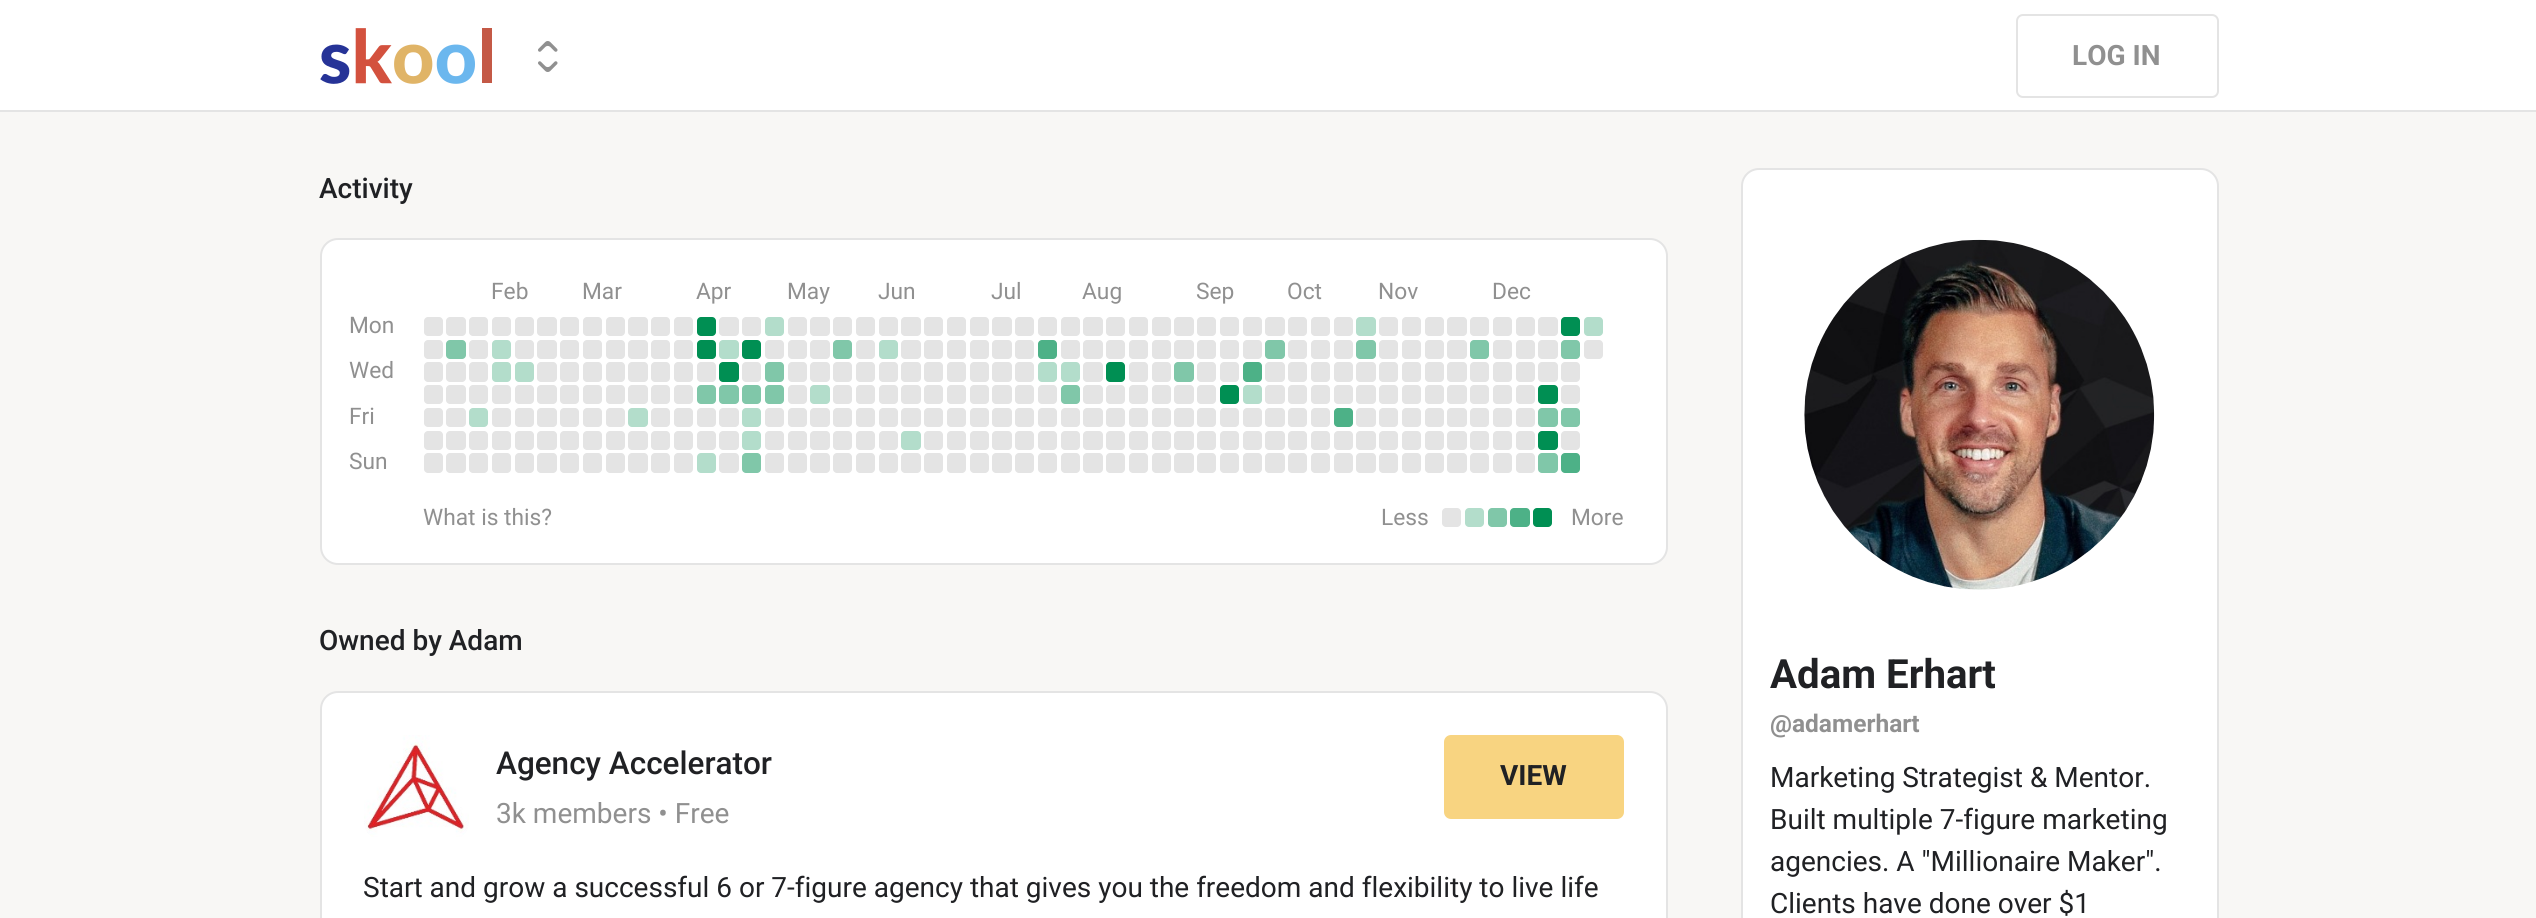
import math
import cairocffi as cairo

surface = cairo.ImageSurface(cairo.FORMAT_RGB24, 2536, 918)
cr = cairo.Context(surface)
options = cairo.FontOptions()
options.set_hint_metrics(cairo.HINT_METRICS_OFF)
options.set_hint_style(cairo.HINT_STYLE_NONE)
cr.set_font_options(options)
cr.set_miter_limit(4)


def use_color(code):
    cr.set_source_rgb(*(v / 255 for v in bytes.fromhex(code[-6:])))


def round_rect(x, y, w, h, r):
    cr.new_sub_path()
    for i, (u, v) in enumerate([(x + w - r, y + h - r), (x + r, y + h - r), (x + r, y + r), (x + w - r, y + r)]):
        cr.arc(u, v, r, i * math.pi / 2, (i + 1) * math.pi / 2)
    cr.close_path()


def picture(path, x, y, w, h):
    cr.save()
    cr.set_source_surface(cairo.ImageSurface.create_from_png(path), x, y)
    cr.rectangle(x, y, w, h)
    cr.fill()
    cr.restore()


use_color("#f8f7f5")
cr.paint()
use_color("#ffffff")
cr.rectangle(0, 0, 2536, 110)
cr.fill()
use_color("#e4e4e4")
cr.rectangle(0, 110, 2536, 2)
cr.fill()
picture("img1.png", 320, 28, 172, 56)
picture("img2.png", 538, 41, 20, 31)
round_rect(2017, 15, 201, 82, 6)
cr.stroke()
cr.select_font_face("Roboto", cairo.FONT_SLANT_NORMAL, cairo.FONT_WEIGHT_BOLD)
cr.set_font_size(28)
use_color("#909090")
cr.move_to(2072, 65)
cr.show_text("LOG IN")
cr.select_font_face("Roboto Medium")
use_color("#202124")
cr.move_to(319, 198)
cr.show_text("Activity")
use_color("#ffffff")
round_rect(321, 239, 1346, 325, 17)
cr.fill_preserve()
use_color("#e4e4e4")
cr.stroke()
cr.select_font_face("Roboto")
cr.set_font_size(22.75)
use_color("#909090")
cr.move_to(491, 299)
cr.show_text("Feb")
cr.move_to(582, 299)
cr.show_text("Mar")
cr.move_to(696, 299)
cr.show_text("Apr")
cr.move_to(787, 299)
cr.show_text("May")
cr.move_to(878, 299)
cr.show_text("Jun")
cr.move_to(991, 299)
cr.show_text("Jul")
cr.move_to(1082, 299)
cr.show_text("Aug")
cr.move_to(1196, 299)
cr.show_text("Sep")
cr.move_to(1287, 299)
cr.show_text("Oct")
cr.move_to(1378, 299)
cr.show_text("Nov")
cr.move_to(1492, 299)
cr.show_text("Dec")
use_color("#e4e4e4")
round_rect(424, 317, 19, 19, 4)
cr.fill()
round_rect(446, 317, 20, 19, 4)
cr.fill()
round_rect(469, 317, 19, 19, 4)
cr.fill()
round_rect(492, 317, 19, 19, 4)
cr.fill()
round_rect(515, 317, 19, 19, 4)
cr.fill()
round_rect(537, 317, 20, 19, 4)
cr.fill()
round_rect(560, 317, 19, 19, 4)
cr.fill()
round_rect(583, 317, 19, 19, 4)
cr.fill()
round_rect(606, 317, 19, 19, 4)
cr.fill()
round_rect(628, 317, 20, 19, 4)
cr.fill()
round_rect(651, 317, 19, 19, 4)
cr.fill()
round_rect(674, 317, 19, 19, 4)
cr.fill()
use_color("#008f53")
round_rect(697, 317, 19, 19, 4)
cr.fill()
use_color("#e4e4e4")
round_rect(719, 317, 20, 19, 4)
cr.fill()
round_rect(742, 317, 19, 19, 4)
cr.fill()
use_color("#b3ddcb")
round_rect(765, 317, 19, 19, 4)
cr.fill()
use_color("#e4e4e4")
round_rect(788, 317, 19, 19, 4)
cr.fill()
round_rect(810, 317, 20, 19, 4)
cr.fill()
round_rect(833, 317, 19, 19, 4)
cr.fill()
round_rect(856, 317, 19, 19, 4)
cr.fill()
round_rect(879, 317, 19, 19, 4)
cr.fill()
round_rect(901, 317, 20, 19, 4)
cr.fill()
round_rect(924, 317, 19, 19, 4)
cr.fill()
round_rect(947, 317, 19, 19, 4)
cr.fill()
round_rect(970, 317, 19, 19, 4)
cr.fill()
round_rect(992, 317, 20, 19, 4)
cr.fill()
round_rect(1015, 317, 19, 19, 4)
cr.fill()
round_rect(1038, 317, 19, 19, 4)
cr.fill()
round_rect(1061, 317, 19, 19, 4)
cr.fill()
round_rect(1083, 317, 20, 19, 4)
cr.fill()
round_rect(1106, 317, 19, 19, 4)
cr.fill()
round_rect(1129, 317, 19, 19, 4)
cr.fill()
round_rect(1152, 317, 19, 19, 4)
cr.fill()
round_rect(1174, 317, 20, 19, 4)
cr.fill()
round_rect(1197, 317, 19, 19, 4)
cr.fill()
round_rect(1220, 317, 19, 19, 4)
cr.fill()
round_rect(1243, 317, 19, 19, 4)
cr.fill()
round_rect(1265, 317, 20, 19, 4)
cr.fill()
round_rect(1288, 317, 19, 19, 4)
cr.fill()
round_rect(1311, 317, 19, 19, 4)
cr.fill()
round_rect(1334, 317, 19, 19, 4)
cr.fill()
use_color("#b3ddcb")
round_rect(1356, 317, 20, 19, 4)
cr.fill()
use_color("#e4e4e4")
round_rect(1379, 317, 19, 19, 4)
cr.fill()
round_rect(1402, 317, 19, 19, 4)
cr.fill()
round_rect(1425, 317, 19, 19, 4)
cr.fill()
round_rect(1447, 317, 20, 19, 4)
cr.fill()
round_rect(1470, 317, 19, 19, 4)
cr.fill()
round_rect(1493, 317, 19, 19, 4)
cr.fill()
round_rect(1516, 317, 19, 19, 4)
cr.fill()
round_rect(1538, 317, 20, 19, 4)
cr.fill()
use_color("#008f53")
round_rect(1561, 317, 19, 19, 4)
cr.fill()
use_color("#b3ddcb")
round_rect(1584, 317, 19, 19, 4)
cr.fill()
use_color("#e4e4e4")
round_rect(424, 340, 19, 19, 4)
cr.fill()
use_color("#80c7a9")
round_rect(446, 340, 20, 19, 4)
cr.fill()
use_color("#e4e4e4")
round_rect(469, 340, 19, 19, 4)
cr.fill()
use_color("#b3ddcb")
round_rect(492, 340, 19, 19, 4)
cr.fill()
use_color("#e4e4e4")
round_rect(515, 340, 19, 19, 4)
cr.fill()
round_rect(537, 340, 20, 19, 4)
cr.fill()
round_rect(560, 340, 19, 19, 4)
cr.fill()
round_rect(583, 340, 19, 19, 4)
cr.fill()
round_rect(606, 340, 19, 19, 4)
cr.fill()
round_rect(628, 340, 20, 19, 4)
cr.fill()
round_rect(651, 340, 19, 19, 4)
cr.fill()
round_rect(674, 340, 19, 19, 4)
cr.fill()
use_color("#008f53")
round_rect(697, 340, 19, 19, 4)
cr.fill()
use_color("#b3ddcb")
round_rect(719, 340, 20, 19, 4)
cr.fill()
use_color("#008f53")
round_rect(742, 340, 19, 19, 4)
cr.fill()
use_color("#e4e4e4")
round_rect(765, 340, 19, 19, 4)
cr.fill()
round_rect(788, 340, 19, 19, 4)
cr.fill()
round_rect(810, 340, 20, 19, 4)
cr.fill()
use_color("#80c7a9")
round_rect(833, 340, 19, 19, 4)
cr.fill()
use_color("#e4e4e4")
round_rect(856, 340, 19, 19, 4)
cr.fill()
use_color("#b3ddcb")
round_rect(879, 340, 19, 19, 4)
cr.fill()
use_color("#e4e4e4")
round_rect(901, 340, 20, 19, 4)
cr.fill()
round_rect(924, 340, 19, 19, 4)
cr.fill()
round_rect(947, 340, 19, 19, 4)
cr.fill()
round_rect(970, 340, 19, 19, 4)
cr.fill()
round_rect(992, 340, 20, 19, 4)
cr.fill()
round_rect(1015, 340, 19, 19, 4)
cr.fill()
use_color("#4db187")
round_rect(1038, 340, 19, 19, 4)
cr.fill()
use_color("#e4e4e4")
round_rect(1061, 340, 19, 19, 4)
cr.fill()
round_rect(1083, 340, 20, 19, 4)
cr.fill()
round_rect(1106, 340, 19, 19, 4)
cr.fill()
round_rect(1129, 340, 19, 19, 4)
cr.fill()
round_rect(1152, 340, 19, 19, 4)
cr.fill()
round_rect(1174, 340, 20, 19, 4)
cr.fill()
round_rect(1197, 340, 19, 19, 4)
cr.fill()
round_rect(1220, 340, 19, 19, 4)
cr.fill()
round_rect(1243, 340, 19, 19, 4)
cr.fill()
use_color("#80c7a9")
round_rect(1265, 340, 20, 19, 4)
cr.fill()
use_color("#e4e4e4")
round_rect(1288, 340, 19, 19, 4)
cr.fill()
round_rect(1311, 340, 19, 19, 4)
cr.fill()
round_rect(1334, 340, 19, 19, 4)
cr.fill()
use_color("#80c7a9")
round_rect(1356, 340, 20, 19, 4)
cr.fill()
use_color("#e4e4e4")
round_rect(1379, 340, 19, 19, 4)
cr.fill()
round_rect(1402, 340, 19, 19, 4)
cr.fill()
round_rect(1425, 340, 19, 19, 4)
cr.fill()
round_rect(1447, 340, 20, 19, 4)
cr.fill()
use_color("#80c7a9")
round_rect(1470, 340, 19, 19, 4)
cr.fill()
use_color("#e4e4e4")
round_rect(1493, 340, 19, 19, 4)
cr.fill()
round_rect(1516, 340, 19, 19, 4)
cr.fill()
round_rect(1538, 340, 20, 19, 4)
cr.fill()
use_color("#80c7a9")
round_rect(1561, 340, 19, 19, 4)
cr.fill()
use_color("#e4e4e4")
round_rect(1584, 340, 19, 19, 4)
cr.fill()
round_rect(424, 362, 19, 20, 4)
cr.fill()
round_rect(446, 362, 20, 20, 4)
cr.fill()
round_rect(469, 362, 19, 20, 4)
cr.fill()
use_color("#b3ddcb")
round_rect(492, 362, 19, 20, 4)
cr.fill()
round_rect(515, 362, 19, 20, 4)
cr.fill()
use_color("#e4e4e4")
round_rect(537, 362, 20, 20, 4)
cr.fill()
round_rect(560, 362, 19, 20, 4)
cr.fill()
round_rect(583, 362, 19, 20, 4)
cr.fill()
round_rect(606, 362, 19, 20, 4)
cr.fill()
round_rect(628, 362, 20, 20, 4)
cr.fill()
round_rect(651, 362, 19, 20, 4)
cr.fill()
round_rect(674, 362, 19, 20, 4)
cr.fill()
round_rect(697, 362, 19, 20, 4)
cr.fill()
use_color("#008f53")
round_rect(719, 362, 20, 20, 4)
cr.fill()
use_color("#e4e4e4")
round_rect(742, 362, 19, 20, 4)
cr.fill()
use_color("#80c7a9")
round_rect(765, 362, 19, 20, 4)
cr.fill()
use_color("#e4e4e4")
round_rect(788, 362, 19, 20, 4)
cr.fill()
round_rect(810, 362, 20, 20, 4)
cr.fill()
round_rect(833, 362, 19, 20, 4)
cr.fill()
round_rect(856, 362, 19, 20, 4)
cr.fill()
round_rect(879, 362, 19, 20, 4)
cr.fill()
round_rect(901, 362, 20, 20, 4)
cr.fill()
round_rect(924, 362, 19, 20, 4)
cr.fill()
round_rect(947, 362, 19, 20, 4)
cr.fill()
round_rect(970, 362, 19, 20, 4)
cr.fill()
round_rect(992, 362, 20, 20, 4)
cr.fill()
round_rect(1015, 362, 19, 20, 4)
cr.fill()
use_color("#b3ddcb")
round_rect(1038, 362, 19, 20, 4)
cr.fill()
round_rect(1061, 362, 19, 20, 4)
cr.fill()
use_color("#e4e4e4")
round_rect(1083, 362, 20, 20, 4)
cr.fill()
use_color("#008f53")
round_rect(1106, 362, 19, 20, 4)
cr.fill()
use_color("#e4e4e4")
round_rect(1129, 362, 19, 20, 4)
cr.fill()
round_rect(1152, 362, 19, 20, 4)
cr.fill()
use_color("#80c7a9")
round_rect(1174, 362, 20, 20, 4)
cr.fill()
use_color("#e4e4e4")
round_rect(1197, 362, 19, 20, 4)
cr.fill()
round_rect(1220, 362, 19, 20, 4)
cr.fill()
use_color("#4db187")
round_rect(1243, 362, 19, 20, 4)
cr.fill()
use_color("#e4e4e4")
round_rect(1265, 362, 20, 20, 4)
cr.fill()
round_rect(1288, 362, 19, 20, 4)
cr.fill()
round_rect(1311, 362, 19, 20, 4)
cr.fill()
round_rect(1334, 362, 19, 20, 4)
cr.fill()
round_rect(1356, 362, 20, 20, 4)
cr.fill()
round_rect(1379, 362, 19, 20, 4)
cr.fill()
round_rect(1402, 362, 19, 20, 4)
cr.fill()
round_rect(1425, 362, 19, 20, 4)
cr.fill()
round_rect(1447, 362, 20, 20, 4)
cr.fill()
round_rect(1470, 362, 19, 20, 4)
cr.fill()
round_rect(1493, 362, 19, 20, 4)
cr.fill()
round_rect(1516, 362, 19, 20, 4)
cr.fill()
round_rect(1538, 362, 20, 20, 4)
cr.fill()
round_rect(1561, 362, 19, 20, 4)
cr.fill()
round_rect(424, 385, 19, 19, 4)
cr.fill()
round_rect(446, 385, 20, 19, 4)
cr.fill()
round_rect(469, 385, 19, 19, 4)
cr.fill()
round_rect(492, 385, 19, 19, 4)
cr.fill()
round_rect(515, 385, 19, 19, 4)
cr.fill()
round_rect(537, 385, 20, 19, 4)
cr.fill()
round_rect(560, 385, 19, 19, 4)
cr.fill()
round_rect(583, 385, 19, 19, 4)
cr.fill()
round_rect(606, 385, 19, 19, 4)
cr.fill()
round_rect(628, 385, 20, 19, 4)
cr.fill()
round_rect(651, 385, 19, 19, 4)
cr.fill()
round_rect(674, 385, 19, 19, 4)
cr.fill()
use_color("#80c7a9")
round_rect(697, 385, 19, 19, 4)
cr.fill()
round_rect(719, 385, 20, 19, 4)
cr.fill()
round_rect(742, 385, 19, 19, 4)
cr.fill()
round_rect(765, 385, 19, 19, 4)
cr.fill()
use_color("#e4e4e4")
round_rect(788, 385, 19, 19, 4)
cr.fill()
use_color("#b3ddcb")
round_rect(810, 385, 20, 19, 4)
cr.fill()
use_color("#e4e4e4")
round_rect(833, 385, 19, 19, 4)
cr.fill()
round_rect(856, 385, 19, 19, 4)
cr.fill()
round_rect(879, 385, 19, 19, 4)
cr.fill()
round_rect(901, 385, 20, 19, 4)
cr.fill()
round_rect(924, 385, 19, 19, 4)
cr.fill()
round_rect(947, 385, 19, 19, 4)
cr.fill()
round_rect(970, 385, 19, 19, 4)
cr.fill()
round_rect(992, 385, 20, 19, 4)
cr.fill()
round_rect(1015, 385, 19, 19, 4)
cr.fill()
round_rect(1038, 385, 19, 19, 4)
cr.fill()
use_color("#80c7a9")
round_rect(1061, 385, 19, 19, 4)
cr.fill()
use_color("#e4e4e4")
round_rect(1083, 385, 20, 19, 4)
cr.fill()
round_rect(1106, 385, 19, 19, 4)
cr.fill()
round_rect(1129, 385, 19, 19, 4)
cr.fill()
round_rect(1152, 385, 19, 19, 4)
cr.fill()
round_rect(1174, 385, 20, 19, 4)
cr.fill()
round_rect(1197, 385, 19, 19, 4)
cr.fill()
use_color("#008f53")
round_rect(1220, 385, 19, 19, 4)
cr.fill()
use_color("#b3ddcb")
round_rect(1243, 385, 19, 19, 4)
cr.fill()
use_color("#e4e4e4")
round_rect(1265, 385, 20, 19, 4)
cr.fill()
round_rect(1288, 385, 19, 19, 4)
cr.fill()
round_rect(1311, 385, 19, 19, 4)
cr.fill()
round_rect(1334, 385, 19, 19, 4)
cr.fill()
round_rect(1356, 385, 20, 19, 4)
cr.fill()
round_rect(1379, 385, 19, 19, 4)
cr.fill()
round_rect(1402, 385, 19, 19, 4)
cr.fill()
round_rect(1425, 385, 19, 19, 4)
cr.fill()
round_rect(1447, 385, 20, 19, 4)
cr.fill()
round_rect(1470, 385, 19, 19, 4)
cr.fill()
round_rect(1493, 385, 19, 19, 4)
cr.fill()
round_rect(1516, 385, 19, 19, 4)
cr.fill()
use_color("#008f53")
round_rect(1538, 385, 20, 19, 4)
cr.fill()
use_color("#e4e4e4")
round_rect(1561, 385, 19, 19, 4)
cr.fill()
round_rect(424, 408, 19, 19, 4)
cr.fill()
round_rect(446, 408, 20, 19, 4)
cr.fill()
use_color("#b3ddcb")
round_rect(469, 408, 19, 19, 4)
cr.fill()
use_color("#e4e4e4")
round_rect(492, 408, 19, 19, 4)
cr.fill()
round_rect(515, 408, 19, 19, 4)
cr.fill()
round_rect(537, 408, 20, 19, 4)
cr.fill()
round_rect(560, 408, 19, 19, 4)
cr.fill()
round_rect(583, 408, 19, 19, 4)
cr.fill()
round_rect(606, 408, 19, 19, 4)
cr.fill()
use_color("#b3ddcb")
round_rect(628, 408, 20, 19, 4)
cr.fill()
use_color("#e4e4e4")
round_rect(651, 408, 19, 19, 4)
cr.fill()
round_rect(674, 408, 19, 19, 4)
cr.fill()
round_rect(697, 408, 19, 19, 4)
cr.fill()
round_rect(719, 408, 20, 19, 4)
cr.fill()
use_color("#b3ddcb")
round_rect(742, 408, 19, 19, 4)
cr.fill()
use_color("#e4e4e4")
round_rect(765, 408, 19, 19, 4)
cr.fill()
round_rect(788, 408, 19, 19, 4)
cr.fill()
round_rect(810, 408, 20, 19, 4)
cr.fill()
round_rect(833, 408, 19, 19, 4)
cr.fill()
round_rect(856, 408, 19, 19, 4)
cr.fill()
round_rect(879, 408, 19, 19, 4)
cr.fill()
round_rect(901, 408, 20, 19, 4)
cr.fill()
round_rect(924, 408, 19, 19, 4)
cr.fill()
round_rect(947, 408, 19, 19, 4)
cr.fill()
round_rect(970, 408, 19, 19, 4)
cr.fill()
round_rect(992, 408, 20, 19, 4)
cr.fill()
round_rect(1015, 408, 19, 19, 4)
cr.fill()
round_rect(1038, 408, 19, 19, 4)
cr.fill()
round_rect(1061, 408, 19, 19, 4)
cr.fill()
round_rect(1083, 408, 20, 19, 4)
cr.fill()
round_rect(1106, 408, 19, 19, 4)
cr.fill()
round_rect(1129, 408, 19, 19, 4)
cr.fill()
round_rect(1152, 408, 19, 19, 4)
cr.fill()
round_rect(1174, 408, 20, 19, 4)
cr.fill()
round_rect(1197, 408, 19, 19, 4)
cr.fill()
round_rect(1220, 408, 19, 19, 4)
cr.fill()
round_rect(1243, 408, 19, 19, 4)
cr.fill()
round_rect(1265, 408, 20, 19, 4)
cr.fill()
round_rect(1288, 408, 19, 19, 4)
cr.fill()
round_rect(1311, 408, 19, 19, 4)
cr.fill()
use_color("#4db187")
round_rect(1334, 408, 19, 19, 4)
cr.fill()
use_color("#e4e4e4")
round_rect(1356, 408, 20, 19, 4)
cr.fill()
round_rect(1379, 408, 19, 19, 4)
cr.fill()
round_rect(1402, 408, 19, 19, 4)
cr.fill()
round_rect(1425, 408, 19, 19, 4)
cr.fill()
round_rect(1447, 408, 20, 19, 4)
cr.fill()
round_rect(1470, 408, 19, 19, 4)
cr.fill()
round_rect(1493, 408, 19, 19, 4)
cr.fill()
round_rect(1516, 408, 19, 19, 4)
cr.fill()
use_color("#80c7a9")
round_rect(1538, 408, 20, 19, 4)
cr.fill()
round_rect(1561, 408, 19, 19, 4)
cr.fill()
use_color("#e4e4e4")
round_rect(424, 431, 19, 19, 4)
cr.fill()
round_rect(446, 431, 20, 19, 4)
cr.fill()
round_rect(469, 431, 19, 19, 4)
cr.fill()
round_rect(492, 431, 19, 19, 4)
cr.fill()
round_rect(515, 431, 19, 19, 4)
cr.fill()
round_rect(537, 431, 20, 19, 4)
cr.fill()
round_rect(560, 431, 19, 19, 4)
cr.fill()
round_rect(583, 431, 19, 19, 4)
cr.fill()
round_rect(606, 431, 19, 19, 4)
cr.fill()
round_rect(628, 431, 20, 19, 4)
cr.fill()
round_rect(651, 431, 19, 19, 4)
cr.fill()
round_rect(674, 431, 19, 19, 4)
cr.fill()
round_rect(697, 431, 19, 19, 4)
cr.fill()
round_rect(719, 431, 20, 19, 4)
cr.fill()
use_color("#b3ddcb")
round_rect(742, 431, 19, 19, 4)
cr.fill()
use_color("#e4e4e4")
round_rect(765, 431, 19, 19, 4)
cr.fill()
round_rect(788, 431, 19, 19, 4)
cr.fill()
round_rect(810, 431, 20, 19, 4)
cr.fill()
round_rect(833, 431, 19, 19, 4)
cr.fill()
round_rect(856, 431, 19, 19, 4)
cr.fill()
round_rect(879, 431, 19, 19, 4)
cr.fill()
use_color("#b3ddcb")
round_rect(901, 431, 20, 19, 4)
cr.fill()
use_color("#e4e4e4")
round_rect(924, 431, 19, 19, 4)
cr.fill()
round_rect(947, 431, 19, 19, 4)
cr.fill()
round_rect(970, 431, 19, 19, 4)
cr.fill()
round_rect(992, 431, 20, 19, 4)
cr.fill()
round_rect(1015, 431, 19, 19, 4)
cr.fill()
round_rect(1038, 431, 19, 19, 4)
cr.fill()
round_rect(1061, 431, 19, 19, 4)
cr.fill()
round_rect(1083, 431, 20, 19, 4)
cr.fill()
round_rect(1106, 431, 19, 19, 4)
cr.fill()
round_rect(1129, 431, 19, 19, 4)
cr.fill()
round_rect(1152, 431, 19, 19, 4)
cr.fill()
round_rect(1174, 431, 20, 19, 4)
cr.fill()
round_rect(1197, 431, 19, 19, 4)
cr.fill()
round_rect(1220, 431, 19, 19, 4)
cr.fill()
round_rect(1243, 431, 19, 19, 4)
cr.fill()
round_rect(1265, 431, 20, 19, 4)
cr.fill()
round_rect(1288, 431, 19, 19, 4)
cr.fill()
round_rect(1311, 431, 19, 19, 4)
cr.fill()
round_rect(1334, 431, 19, 19, 4)
cr.fill()
round_rect(1356, 431, 20, 19, 4)
cr.fill()
round_rect(1379, 431, 19, 19, 4)
cr.fill()
round_rect(1402, 431, 19, 19, 4)
cr.fill()
round_rect(1425, 431, 19, 19, 4)
cr.fill()
round_rect(1447, 431, 20, 19, 4)
cr.fill()
round_rect(1470, 431, 19, 19, 4)
cr.fill()
round_rect(1493, 431, 19, 19, 4)
cr.fill()
round_rect(1516, 431, 19, 19, 4)
cr.fill()
use_color("#008f53")
round_rect(1538, 431, 20, 19, 4)
cr.fill()
use_color("#e4e4e4")
round_rect(1561, 431, 19, 19, 4)
cr.fill()
round_rect(424, 453, 19, 20, 4)
cr.fill()
round_rect(446, 453, 20, 20, 4)
cr.fill()
round_rect(469, 453, 19, 20, 4)
cr.fill()
round_rect(492, 453, 19, 20, 4)
cr.fill()
round_rect(515, 453, 19, 20, 4)
cr.fill()
round_rect(537, 453, 20, 20, 4)
cr.fill()
round_rect(560, 453, 19, 20, 4)
cr.fill()
round_rect(583, 453, 19, 20, 4)
cr.fill()
round_rect(606, 453, 19, 20, 4)
cr.fill()
round_rect(628, 453, 20, 20, 4)
cr.fill()
round_rect(651, 453, 19, 20, 4)
cr.fill()
round_rect(674, 453, 19, 20, 4)
cr.fill()
use_color("#b3ddcb")
round_rect(697, 453, 19, 20, 4)
cr.fill()
use_color("#e4e4e4")
round_rect(719, 453, 20, 20, 4)
cr.fill()
use_color("#80c7a9")
round_rect(742, 453, 19, 20, 4)
cr.fill()
use_color("#e4e4e4")
round_rect(765, 453, 19, 20, 4)
cr.fill()
round_rect(788, 453, 19, 20, 4)
cr.fill()
round_rect(810, 453, 20, 20, 4)
cr.fill()
round_rect(833, 453, 19, 20, 4)
cr.fill()
round_rect(856, 453, 19, 20, 4)
cr.fill()
round_rect(879, 453, 19, 20, 4)
cr.fill()
round_rect(901, 453, 20, 20, 4)
cr.fill()
round_rect(924, 453, 19, 20, 4)
cr.fill()
round_rect(947, 453, 19, 20, 4)
cr.fill()
round_rect(970, 453, 19, 20, 4)
cr.fill()
round_rect(992, 453, 20, 20, 4)
cr.fill()
round_rect(1015, 453, 19, 20, 4)
cr.fill()
round_rect(1038, 453, 19, 20, 4)
cr.fill()
round_rect(1061, 453, 19, 20, 4)
cr.fill()
round_rect(1083, 453, 20, 20, 4)
cr.fill()
round_rect(1106, 453, 19, 20, 4)
cr.fill()
round_rect(1129, 453, 19, 20, 4)
cr.fill()
round_rect(1152, 453, 19, 20, 4)
cr.fill()
round_rect(1174, 453, 20, 20, 4)
cr.fill()
round_rect(1197, 453, 19, 20, 4)
cr.fill()
round_rect(1220, 453, 19, 20, 4)
cr.fill()
round_rect(1243, 453, 19, 20, 4)
cr.fill()
round_rect(1265, 453, 20, 20, 4)
cr.fill()
round_rect(1288, 453, 19, 20, 4)
cr.fill()
round_rect(1311, 453, 19, 20, 4)
cr.fill()
round_rect(1334, 453, 19, 20, 4)
cr.fill()
round_rect(1356, 453, 20, 20, 4)
cr.fill()
round_rect(1379, 453, 19, 20, 4)
cr.fill()
round_rect(1402, 453, 19, 20, 4)
cr.fill()
round_rect(1425, 453, 19, 20, 4)
cr.fill()
round_rect(1447, 453, 20, 20, 4)
cr.fill()
round_rect(1470, 453, 19, 20, 4)
cr.fill()
round_rect(1493, 453, 19, 20, 4)
cr.fill()
round_rect(1516, 453, 19, 20, 4)
cr.fill()
use_color("#80c7a9")
round_rect(1538, 453, 20, 20, 4)
cr.fill()
use_color("#4db187")
round_rect(1561, 453, 19, 20, 4)
cr.fill()
use_color("#909090")
cr.move_to(349, 333)
cr.show_text("Mon")
cr.move_to(349, 378)
cr.show_text("Wed")
cr.move_to(349, 424)
cr.show_text("Fri")
cr.move_to(349, 469)
cr.show_text("Sun")
cr.move_to(423, 525)
cr.show_text("What is this?")
cr.move_to(1381, 525)
cr.show_text("Less")
use_color("#e4e4e4")
round_rect(1442, 508, 19, 19, 4)
cr.fill()
use_color("#b3ddcb")
round_rect(1465, 508, 19, 19, 4)
cr.fill()
use_color("#80c7a9")
round_rect(1488, 508, 19, 19, 4)
cr.fill()
use_color("#4db187")
round_rect(1510, 508, 20, 19, 4)
cr.fill()
use_color("#008f53")
round_rect(1533, 508, 19, 19, 4)
cr.fill()
use_color("#909090")
cr.move_to(1571, 525)
cr.show_text("More")
cr.select_font_face("Roboto Medium")
cr.set_font_size(28)
use_color("#202124")
cr.move_to(319, 650)
cr.show_text("Owned by Adam")
use_color("#ffffff")
round_rect(321, 692, 1346, 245, 17)
cr.fill_preserve()
use_color("#e4e4e4")
cr.stroke()
picture("img3.png", 364, 735, 105, 102)
cr.set_font_size(31.5)
use_color("#202124")
cr.move_to(496, 774)
cr.show_text("Agency Accelerator")
cr.select_font_face("Roboto")
cr.set_font_size(28)
use_color("#909090")
cr.move_to(496, 823)
cr.show_text("3k members • Free")
use_color("#f8d481")
round_rect(1444, 735, 180, 84, 7)
cr.fill()
cr.select_font_face("Roboto", cairo.FONT_SLANT_NORMAL, cairo.FONT_WEIGHT_BOLD)
use_color("#202124")
cr.move_to(1500, 785)
cr.show_text("VIEW")
cr.select_font_face("Roboto")
cr.move_to(363, 897)
cr.show_text("Start and grow a successful 6 or 7-figure agency that gives you the freedom and flexibility to live life")
use_color("#ffffff")
round_rect(1742, 169, 476, 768, 17)
cr.fill_preserve()
use_color("#e4e4e4")
cr.stroke()
picture("img4.png", 1804, 239, 351, 351)
cr.select_font_face("Roboto", cairo.FONT_SLANT_NORMAL, cairo.FONT_WEIGHT_BOLD)
cr.set_font_size(40.25)
use_color("#202124")
cr.move_to(1770, 688)
cr.show_text("Adam Erhart")
cr.set_font_size(24.5)
use_color("#909090")
cr.move_to(1770, 732)
cr.show_text("@adamerhart")
cr.select_font_face("Roboto")
cr.set_font_size(28)
use_color("#202124")
cr.move_to(1770, 787)
cr.show_text("Marketing Strategist & Mentor.")
cr.move_to(1770, 829)
cr.show_text("Built multiple 7-figure marketing")
cr.move_to(1770, 871)
cr.show_text("agencies. A \"Millionaire Maker\".")
cr.move_to(1770, 913)
cr.show_text("Clients have done over $1")
surface.write_to_png("result.png")
